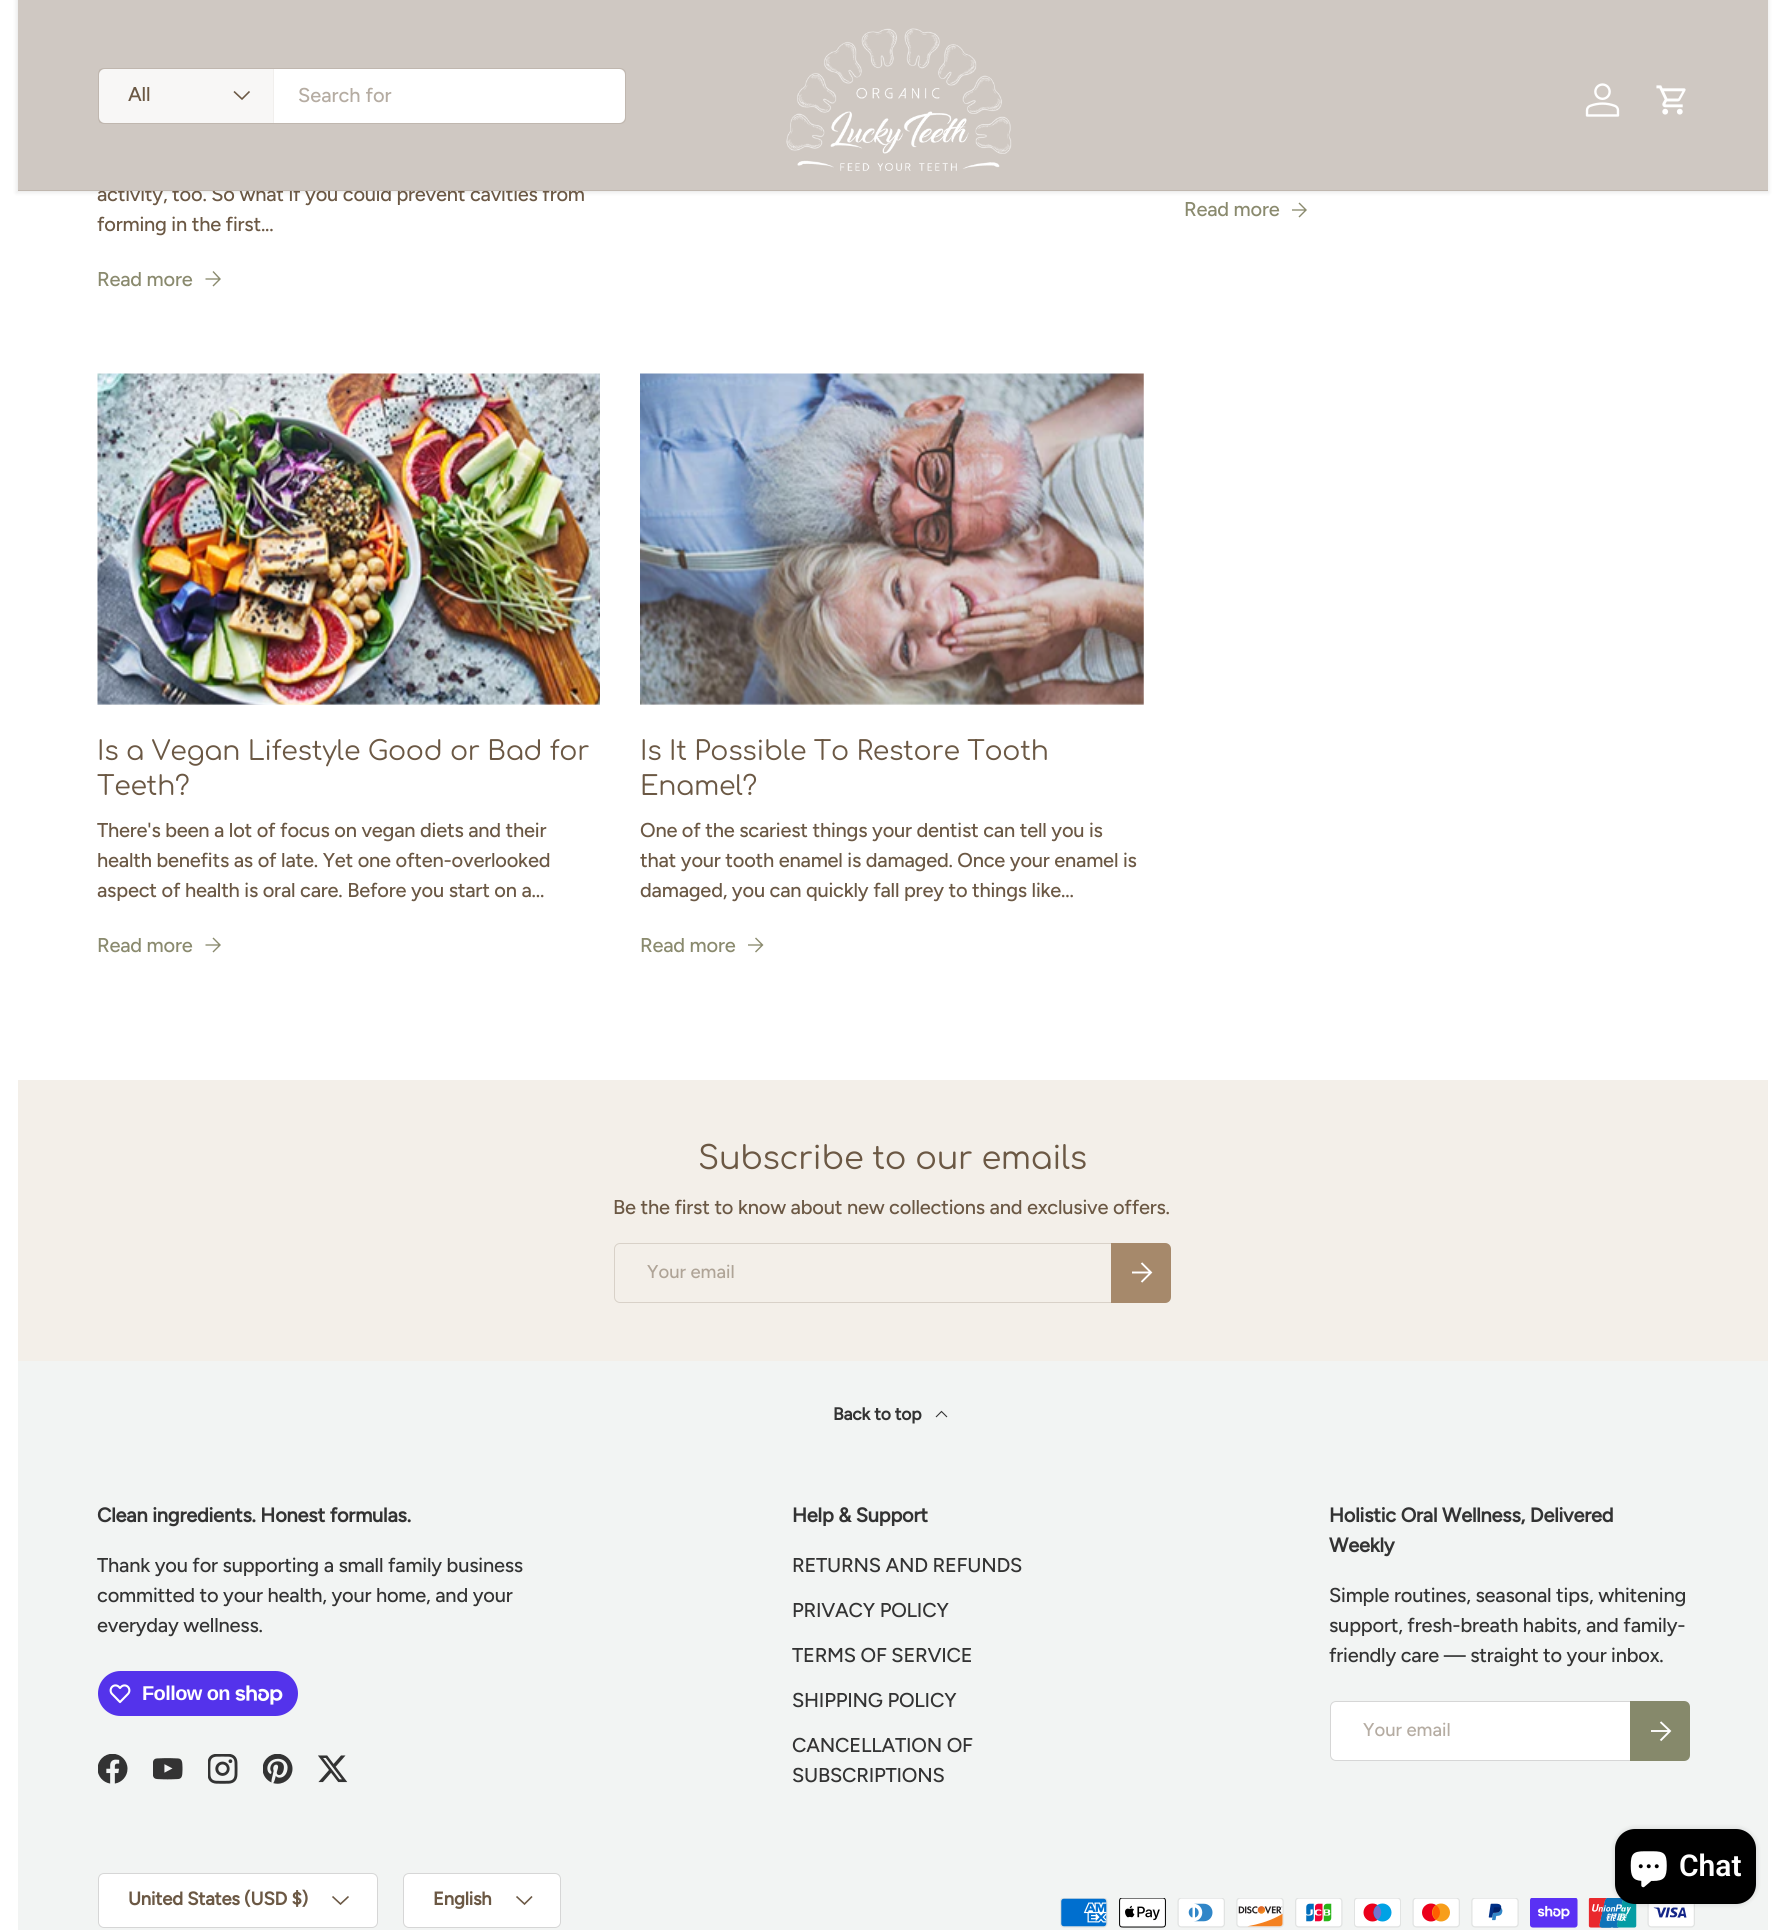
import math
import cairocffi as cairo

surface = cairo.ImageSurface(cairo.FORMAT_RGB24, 1783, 1930)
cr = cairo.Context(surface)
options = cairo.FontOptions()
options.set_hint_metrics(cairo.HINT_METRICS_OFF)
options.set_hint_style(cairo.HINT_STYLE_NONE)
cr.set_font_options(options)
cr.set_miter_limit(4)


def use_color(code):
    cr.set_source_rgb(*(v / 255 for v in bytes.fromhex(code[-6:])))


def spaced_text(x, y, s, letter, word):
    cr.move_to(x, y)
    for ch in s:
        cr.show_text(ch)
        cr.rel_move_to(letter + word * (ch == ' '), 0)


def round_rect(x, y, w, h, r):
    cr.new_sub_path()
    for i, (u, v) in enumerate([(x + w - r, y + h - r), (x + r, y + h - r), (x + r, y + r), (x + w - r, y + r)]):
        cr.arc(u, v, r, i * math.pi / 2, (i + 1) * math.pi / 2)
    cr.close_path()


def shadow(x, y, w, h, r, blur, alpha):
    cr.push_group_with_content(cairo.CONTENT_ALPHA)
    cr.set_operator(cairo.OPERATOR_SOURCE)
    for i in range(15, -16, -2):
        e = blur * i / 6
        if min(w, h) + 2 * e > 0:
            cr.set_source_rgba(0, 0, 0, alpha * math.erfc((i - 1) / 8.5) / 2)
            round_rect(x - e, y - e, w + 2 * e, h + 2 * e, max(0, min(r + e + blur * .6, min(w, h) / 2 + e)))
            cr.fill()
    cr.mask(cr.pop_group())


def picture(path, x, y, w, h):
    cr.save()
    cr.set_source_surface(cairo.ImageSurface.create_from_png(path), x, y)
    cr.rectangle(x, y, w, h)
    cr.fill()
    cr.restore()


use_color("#ffffff")
cr.paint()
use_color("#000000")
shadow(16, -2, 1753, 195, 0, 2, 0.08)
cr.select_font_face("Figtree Medium")
cr.set_font_size(20)
use_color("#6b5844")
spaced_text(97, 201, "activity, too. So what if you could prevent cavities from", -0.2, 0)
use_color("#cfc8c2")
cr.rectangle(18, 0, 1750, 190)
cr.fill()
round_rect(98.5, 68.5, 527, 55, 5.5)
use_color("#c0b7af")
cr.set_line_width(1)
cr.stroke()
use_color("#ffffff")
round_rect(99, 69, 526, 54, 6)
cr.fill()
cr.set_source_rgba(0.42, 0.345, 0.267, 0.05)
cr.rectangle(99, 69, 174, 54)
cr.fill()
use_color("#f1efed")
cr.rectangle(273, 69, 1, 54)
cr.fill()
use_color("#6b5844")
spaced_text(128, 101, "All", -0.2, 0)
cr.new_path()
cr.move_to(249.5, 91.5)
cr.line_to(242, 99)
cr.line_to(234, 91.5)
cr.set_line_width(1.6)
cr.stroke()
use_color("#b5aca2")
cr.move_to(298, 102)
cr.show_text("Search for")
picture("img1.png", 786, 28, 226, 143)
picture("img2.png", 1585, 83, 35, 34)
picture("img3.png", 1656, 85, 30, 30)
use_color("#c0b7af")
cr.rectangle(18, 190, 1750, 1)
cr.fill()
use_color("#6b5844")
spaced_text(97, 231, "forming in the first...", -0.2, 0)
use_color("#8a8a6e")
spaced_text(97, 286, "Read more", -0.2, 0)
cr.new_path()
cr.move_to(205.5, 279)
cr.line_to(219.5, 279)
cr.move_to(213, 271.5)
cr.line_to(220, 279)
cr.line_to(213, 286)
cr.set_line_width(1.4)
cr.stroke()
spaced_text(1184, 216, "Read more", -0.2, 0)
cr.new_path()
cr.move_to(1292, 210)
cr.line_to(1305.5, 210)
cr.move_to(1299, 203)
cr.line_to(1306, 210)
cr.line_to(1299, 217)
cr.stroke()
picture("img4.png", 97, 373, 503, 332)
cr.select_font_face("Comfortaa")
cr.set_font_size(26.75)
use_color("#6b5844")
spaced_text(97, 760, "Is a Vegan Lifestyle Good or Bad for", -0.25, 0)
spaced_text(97, 795, "Teeth?", -0.25, 0)
cr.select_font_face("Figtree Medium")
cr.set_font_size(20)
spaced_text(97, 837, "There's been a lot of focus on vegan diets and their", -0.2, 0)
spaced_text(97, 867, "health benefits as of late. Yet one often-overlooked", -0.2, 0)
spaced_text(97, 897, "aspect of health is oral care. Before you start on a...", -0.2, 0)
use_color("#8a8a6e")
spaced_text(97, 952, "Read more", -0.2, 0)
cr.new_path()
cr.move_to(205.5, 945)
cr.line_to(219.5, 945)
cr.move_to(213, 938)
cr.line_to(220, 945)
cr.line_to(213, 952)
cr.stroke()
picture("img5.png", 640, 373, 504, 332)
cr.select_font_face("Comfortaa")
cr.set_font_size(26.75)
use_color("#6b5844")
spaced_text(640, 760, "Is It Possible To Restore Tooth", -0.25, 0)
spaced_text(640, 795, "Enamel?", -0.25, 0)
cr.select_font_face("Figtree Medium")
cr.set_font_size(20)
spaced_text(640, 837, "One of the scariest things your dentist can tell you is", -0.2, 0)
spaced_text(640, 867, "that your tooth enamel is damaged. Once your enamel is", -0.2, 0)
spaced_text(640, 897, "damaged, you can quickly fall prey to things like...", -0.2, 0)
use_color("#8a8a6e")
spaced_text(640, 952, "Read more", -0.2, 0)
cr.new_path()
cr.move_to(748, 945)
cr.line_to(762, 945)
cr.move_to(755.5, 938)
cr.line_to(762.5, 945)
cr.line_to(755.5, 952)
cr.stroke()
use_color("#f3efe9")
cr.rectangle(18, 1080, 1750, 281)
cr.fill()
cr.select_font_face("Comfortaa")
cr.set_font_size(32)
use_color("#6b5844")
spaced_text(698, 1169, "Subscribe to our emails", -0.3, 0)
cr.select_font_face("Figtree Medium")
cr.set_font_size(20)
spaced_text(613, 1214, "Be the first to know about new collections and exclusive offers.", -0.2, 0)
round_rect(614.5, 1243.5, 555, 59, 5.5)
use_color("#d8d1c8")
cr.set_line_width(1)
cr.stroke()
cr.set_font_size(18.5)
use_color("#afa497")
cr.move_to(647, 1278)
cr.show_text("Your email")
gradient = cairo.LinearGradient(989, 1250, 1173, 1295)
gradient.add_color_stop_rgba(0.6, 0.725, 0.639, 0.545, 1)
gradient.add_color_stop_rgba(0.6, 0.651, 0.537, 0.42, 1)
gradient.add_color_stop_rgba(1, 0.651, 0.537, 0.42, 1)
cr.set_source(gradient)
cr.new_path()
cr.move_to(1111, 1243)
cr.line_to(1165, 1243)
cr.curve_to(1168.5, 1243, 1171, 1245.5, 1171, 1249)
cr.line_to(1171, 1297)
cr.curve_to(1171, 1300.5, 1168.5, 1303, 1165, 1303)
cr.line_to(1111, 1303)
cr.close_path()
cr.fill()
cr.new_path()
cr.move_to(1132, 1272.5)
cr.line_to(1150.5, 1272.5)
cr.move_to(1141.5, 1263)
cr.line_to(1151, 1272.5)
cr.line_to(1141.5, 1282)
use_color("#ffffff")
cr.set_line_width(1.9)
cr.stroke()
use_color("#f2f4f3")
cr.rectangle(18, 1361, 1750, 569)
cr.fill()
cr.select_font_face("Figtree", cairo.FONT_SLANT_NORMAL, cairo.FONT_WEIGHT_BOLD)
cr.set_font_size(17.5)
use_color("#333333")
spaced_text(833, 1420, "Back to top", -0.2, 0)
cr.new_path()
cr.move_to(936, 1417)
cr.line_to(941.5, 1411.5)
cr.line_to(947, 1417)
cr.set_line_width(1.1)
cr.stroke()
cr.set_font_size(20)
spaced_text(97, 1522, "Clean ingredients. Honest formulas.", -0.2, 0)
cr.select_font_face("Figtree Medium")
spaced_text(97, 1572, "Thank you for supporting a small family business", -0.2, 0)
spaced_text(97, 1602, "committed to your health, your home, and your", -0.2, 0)
spaced_text(97, 1632, "everyday wellness.", -0.2, 0)
use_color("#5433eb")
round_rect(98, 1671, 200, 45, 22.5)
cr.fill()
picture("img6.png", 109, 1684, 22, 20)
cr.select_font_face("Liberation Sans", cairo.FONT_SLANT_NORMAL, cairo.FONT_WEIGHT_BOLD)
use_color("#ffffff")
spaced_text(142, 1700, "Follow on", -0.6, 0)
picture("img7.png", 235, 1685, 48, 20)
picture("img8.png", 98, 1754, 30, 30)
picture("img9.png", 153, 1758, 30, 22)
picture("img10.png", 208, 1754, 30, 30)
picture("img11.png", 263, 1754, 30, 30)
picture("img12.png", 318, 1755, 30, 28)
cr.select_font_face("Figtree", cairo.FONT_SLANT_NORMAL, cairo.FONT_WEIGHT_BOLD)
use_color("#333333")
spaced_text(792, 1522, "Help & Support", -0.2, 0)
cr.select_font_face("Figtree Medium")
spaced_text(792, 1572, "RETURNS AND REFUNDS", -0.2, 0)
spaced_text(792, 1617, "PRIVACY POLICY", -0.2, 0)
spaced_text(792, 1662, "TERMS OF SERVICE", -0.2, 0)
spaced_text(792, 1707, "SHIPPING POLICY", -0.2, 0)
spaced_text(792, 1752, "CANCELLATION OF", -0.2, 0)
spaced_text(792, 1782, "SUBSCRIPTIONS", -0.2, 0)
cr.select_font_face("Figtree", cairo.FONT_SLANT_NORMAL, cairo.FONT_WEIGHT_BOLD)
spaced_text(1329, 1522, "Holistic Oral Wellness, Delivered", -0.2, 0)
spaced_text(1329, 1552, "Weekly", -0.2, 0)
cr.select_font_face("Figtree Medium")
spaced_text(1329, 1602, "Simple routines, seasonal tips, whitening", -0.2, 0)
spaced_text(1329, 1632, "support, fresh-breath habits, and family-", -0.2, 0)
spaced_text(1329, 1662, "friendly care — straight to your inbox.", -0.2, 0)
use_color("#ffffff")
round_rect(1330, 1701, 358, 60, 6)
cr.fill()
round_rect(1330.5, 1701.5, 357, 59, 5.5)
cr.set_source_rgba(0.2, 0.2, 0.2, 0.2)
cr.set_line_width(1)
cr.stroke()
cr.set_font_size(18.5)
use_color("#b5aca2")
cr.move_to(1363, 1736)
cr.show_text("Your email")
gradient = cairo.LinearGradient(1508, 1708, 1692, 1754)
gradient.add_color_stop_rgba(0.6, 0.624, 0.635, 0.541, 1)
gradient.add_color_stop_rgba(0.6, 0.525, 0.537, 0.42, 1)
gradient.add_color_stop_rgba(1, 0.525, 0.537, 0.42, 1)
cr.set_source(gradient)
cr.new_path()
cr.move_to(1630, 1701)
cr.line_to(1684, 1701)
cr.curve_to(1687.5, 1701, 1690, 1703.5, 1690, 1707)
cr.line_to(1690, 1755)
cr.curve_to(1690, 1758.5, 1687.5, 1761, 1684, 1761)
cr.line_to(1630, 1761)
cr.close_path()
cr.fill()
cr.new_path()
cr.move_to(1651, 1731)
cr.line_to(1669, 1731)
cr.move_to(1660.5, 1722)
cr.line_to(1670, 1731)
cr.line_to(1660.5, 1740.5)
use_color("#ffffff")
cr.set_line_width(1.9)
cr.stroke()
round_rect(98, 1873, 280, 55, 6)
cr.fill()
round_rect(98.5, 1873.5, 279, 54, 5.5)
cr.set_source_rgba(0.2, 0.2, 0.2, 0.2)
cr.set_line_width(1)
cr.stroke()
cr.select_font_face("Figtree", cairo.FONT_SLANT_NORMAL, cairo.FONT_WEIGHT_BOLD)
use_color("#6b5844")
spaced_text(128, 1905, "United States (USD $)", -0.2, 0)
cr.new_path()
cr.move_to(348.5, 1896.5)
cr.line_to(340.5, 1904)
cr.line_to(332.5, 1896.5)
cr.set_line_width(1.6)
cr.stroke()
use_color("#ffffff")
round_rect(403, 1873, 158, 55, 6)
cr.fill()
round_rect(403.5, 1873.5, 157, 54, 5.5)
cr.set_source_rgba(0.2, 0.2, 0.2, 0.2)
cr.set_line_width(1)
cr.stroke()
use_color("#6b5844")
spaced_text(433, 1905, "English", -0.2, 0)
cr.new_path()
cr.move_to(532, 1896.5)
cr.line_to(524.5, 1904)
cr.line_to(516.5, 1896.5)
cr.set_line_width(1.6)
cr.stroke()
picture("img13.png", 1060, 1898, 48, 30)
picture("img14.png", 1119, 1898, 47, 30)
picture("img15.png", 1177, 1898, 48, 30)
picture("img16.png", 1236, 1898, 48, 30)
picture("img17.png", 1295, 1898, 48, 30)
picture("img18.png", 1354, 1898, 47, 30)
picture("img19.png", 1412, 1898, 48, 30)
picture("img20.png", 1471, 1898, 48, 30)
picture("img21.png", 1530, 1898, 48, 30)
picture("img22.png", 1588, 1898, 49, 30)
picture("img23.png", 1647, 1904, 48, 24)
use_color("#000000")
shadow(1615, 1829, 141, 75, 20, 3, 0.15)
use_color("#000000")
round_rect(1615, 1829, 141, 75, 20)
cr.fill()
picture("img24.png", 1630, 1851, 37, 37)
cr.select_font_face("Roboto SemiBold")
cr.set_font_size(30)
use_color("#ffffff")
cr.move_to(1679, 1876)
cr.show_text("Chat")
surface.write_to_png("result.png")
